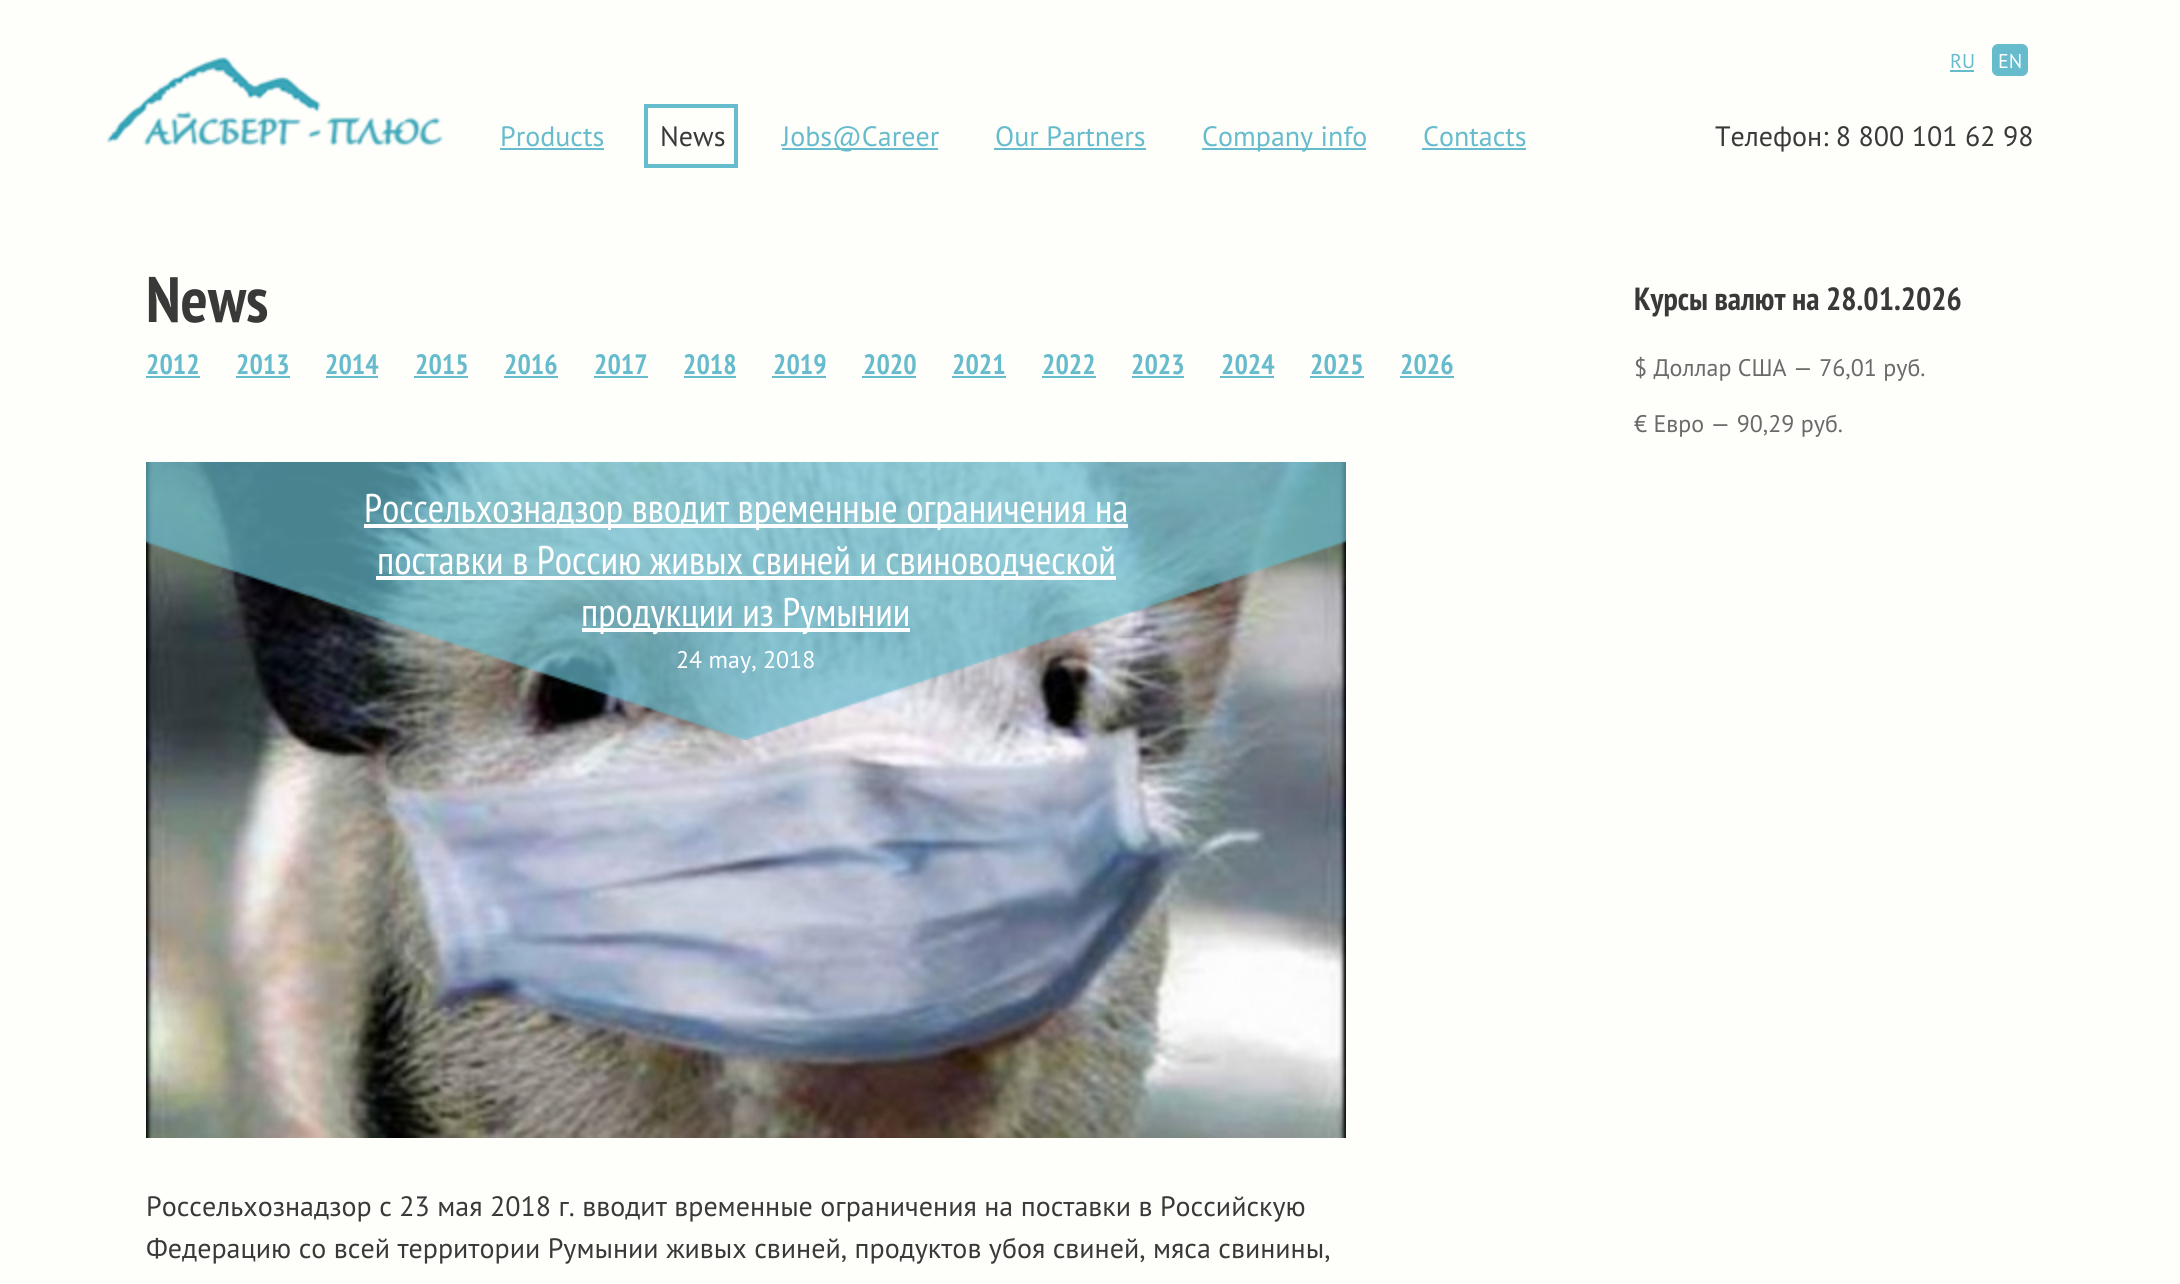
import math
import cairocffi as cairo

surface = cairo.ImageSurface(cairo.FORMAT_RGB24, 2180, 1284)
cr = cairo.Context(surface)
options = cairo.FontOptions()
options.set_hint_metrics(cairo.HINT_METRICS_OFF)
options.set_hint_style(cairo.HINT_STYLE_NONE)
cr.set_font_options(options)
cr.set_miter_limit(4)


def use_color(code):
    cr.set_source_rgb(*(v / 255 for v in bytes.fromhex(code[-6:])))


def round_rect(x, y, w, h, r):
    cr.new_sub_path()
    for i, (u, v) in enumerate([(x + w - r, y + h - r), (x + r, y + h - r), (x + r, y + r), (x + w - r, y + r)]):
        cr.arc(u, v, r, i * math.pi / 2, (i + 1) * math.pi / 2)
    cr.close_path()


def picture(path, x, y, w, h):
    cr.save()
    cr.set_source_surface(cairo.ImageSurface.create_from_png(path), x, y)
    cr.rectangle(x, y, w, h)
    cr.fill()
    cr.restore()


use_color("#fefefa")
cr.paint()
picture("img1.png", 106, 56, 337, 90)
cr.select_font_face("PT Sans")
cr.set_font_size(20)
use_color("#66bbcc")
cr.move_to(1950, 68)
cr.show_text("RU")
cr.rectangle(1950, 70, 24, 2)
cr.fill()
round_rect(1992, 44, 36, 32, 6)
cr.fill()
use_color("#ffffff")
cr.move_to(1998, 68)
cr.show_text("EN")
cr.set_font_size(28)
use_color("#66bbcc")
cr.move_to(500, 146)
cr.show_text("Products")
cr.rectangle(500, 148, 104, 2)
cr.fill()
cr.rectangle(646, 106, 90, 60)
cr.set_line_width(4)
cr.stroke()
use_color("#393939")
cr.move_to(660, 146)
cr.show_text("News")
use_color("#66bbcc")
cr.rectangle(782, 148, 156, 2)
cr.fill()
cr.move_to(782, 146)
cr.show_text("Jobs@Career")
cr.move_to(995, 146)
cr.show_text("Our Partners")
cr.rectangle(994, 148, 152, 2)
cr.fill()
cr.rectangle(1202, 148, 164, 2)
cr.fill()
cr.move_to(1202, 146)
cr.show_text("Сompany info")
cr.move_to(1423, 146)
cr.show_text("Contacts")
cr.rectangle(1422, 148, 104, 2)
cr.fill()
use_color("#393939")
cr.move_to(1715, 146)
cr.show_text("Телефон: 8 800 101 62 98")
cr.select_font_face("PT Sans Narrow", cairo.FONT_SLANT_NORMAL, cairo.FONT_WEIGHT_BOLD)
cr.set_font_size(64)
cr.move_to(146, 322)
cr.show_text("News")
cr.set_font_size(28)
use_color("#66bbcc")
cr.move_to(146, 374)
cr.show_text("2012")
cr.rectangle(146, 376, 54, 2)
cr.fill()
cr.move_to(236, 374)
cr.show_text("2013")
cr.rectangle(236, 376, 54, 2)
cr.fill()
cr.move_to(325, 374)
cr.show_text("2014")
cr.rectangle(326, 376, 52, 2)
cr.fill()
cr.move_to(415, 374)
cr.show_text("2015")
cr.rectangle(414, 376, 54, 2)
cr.fill()
cr.move_to(504, 374)
cr.show_text("2016")
cr.rectangle(504, 376, 54, 2)
cr.fill()
cr.move_to(594, 374)
cr.show_text("2017")
cr.rectangle(594, 376, 54, 2)
cr.fill()
cr.move_to(683, 374)
cr.show_text("2018")
cr.rectangle(684, 376, 52, 2)
cr.fill()
cr.move_to(773, 374)
cr.show_text("2019")
cr.rectangle(772, 376, 54, 2)
cr.fill()
cr.move_to(863, 374)
cr.show_text("2020")
cr.rectangle(862, 376, 54, 2)
cr.fill()
cr.move_to(952, 374)
cr.show_text("2021")
cr.rectangle(952, 376, 54, 2)
cr.fill()
cr.move_to(1042, 374)
cr.show_text("2022")
cr.rectangle(1042, 376, 54, 2)
cr.fill()
cr.move_to(1131, 374)
cr.show_text("2023")
cr.rectangle(1132, 376, 52, 2)
cr.fill()
cr.move_to(1221, 374)
cr.show_text("2024")
cr.rectangle(1220, 376, 54, 2)
cr.fill()
cr.move_to(1310, 374)
cr.show_text("2025")
cr.rectangle(1310, 376, 54, 2)
cr.fill()
cr.move_to(1400, 374)
cr.show_text("2026")
cr.rectangle(1400, 376, 54, 2)
cr.fill()
cr.set_font_size(32)
use_color("#393939")
cr.move_to(1634, 310)
cr.show_text("Курсы валют на 28.01.2026")
cr.select_font_face("PT Sans")
cr.set_font_size(24)
use_color("#6a6a6a")
cr.move_to(1634, 376)
cr.show_text("$ Доллар США — 76,01 руб.")
cr.move_to(1634, 432)
cr.show_text("€ Евро — 90,29 руб.")
picture("img2.png", 146, 462, 1200, 676)
picture("img3.png", 146, 462, 1200, 278)
use_color("#ffffff")
cr.rectangle(364, 524, 764, 4)
cr.fill()
cr.select_font_face("PT Sans Narrow")
cr.set_font_size(40)
cr.move_to(364, 522)
cr.show_text("Россельхознадзор вводит временные ограничения на")
cr.rectangle(376, 576, 740, 4)
cr.fill()
cr.move_to(377, 574)
cr.show_text("поставки в Россию живых свиней и свиноводческой")
cr.rectangle(582, 628, 328, 4)
cr.fill()
cr.move_to(581, 626)
cr.show_text("продукции из Румынии")
cr.select_font_face("PT Sans")
cr.set_font_size(24)
cr.move_to(676, 668)
cr.show_text("24 may, 2018")
cr.set_font_size(28)
use_color("#393939")
cr.move_to(146, 1216)
cr.show_text("Россельхознадзор с 23 мая 2018 г. вводит временные ограничения на поставки в Российскую")
cr.move_to(146, 1258)
cr.show_text("Федерацию со всей территории Румынии живых свиней, продуктов убоя свиней, мяса свинины,")
surface.write_to_png("result.png")
